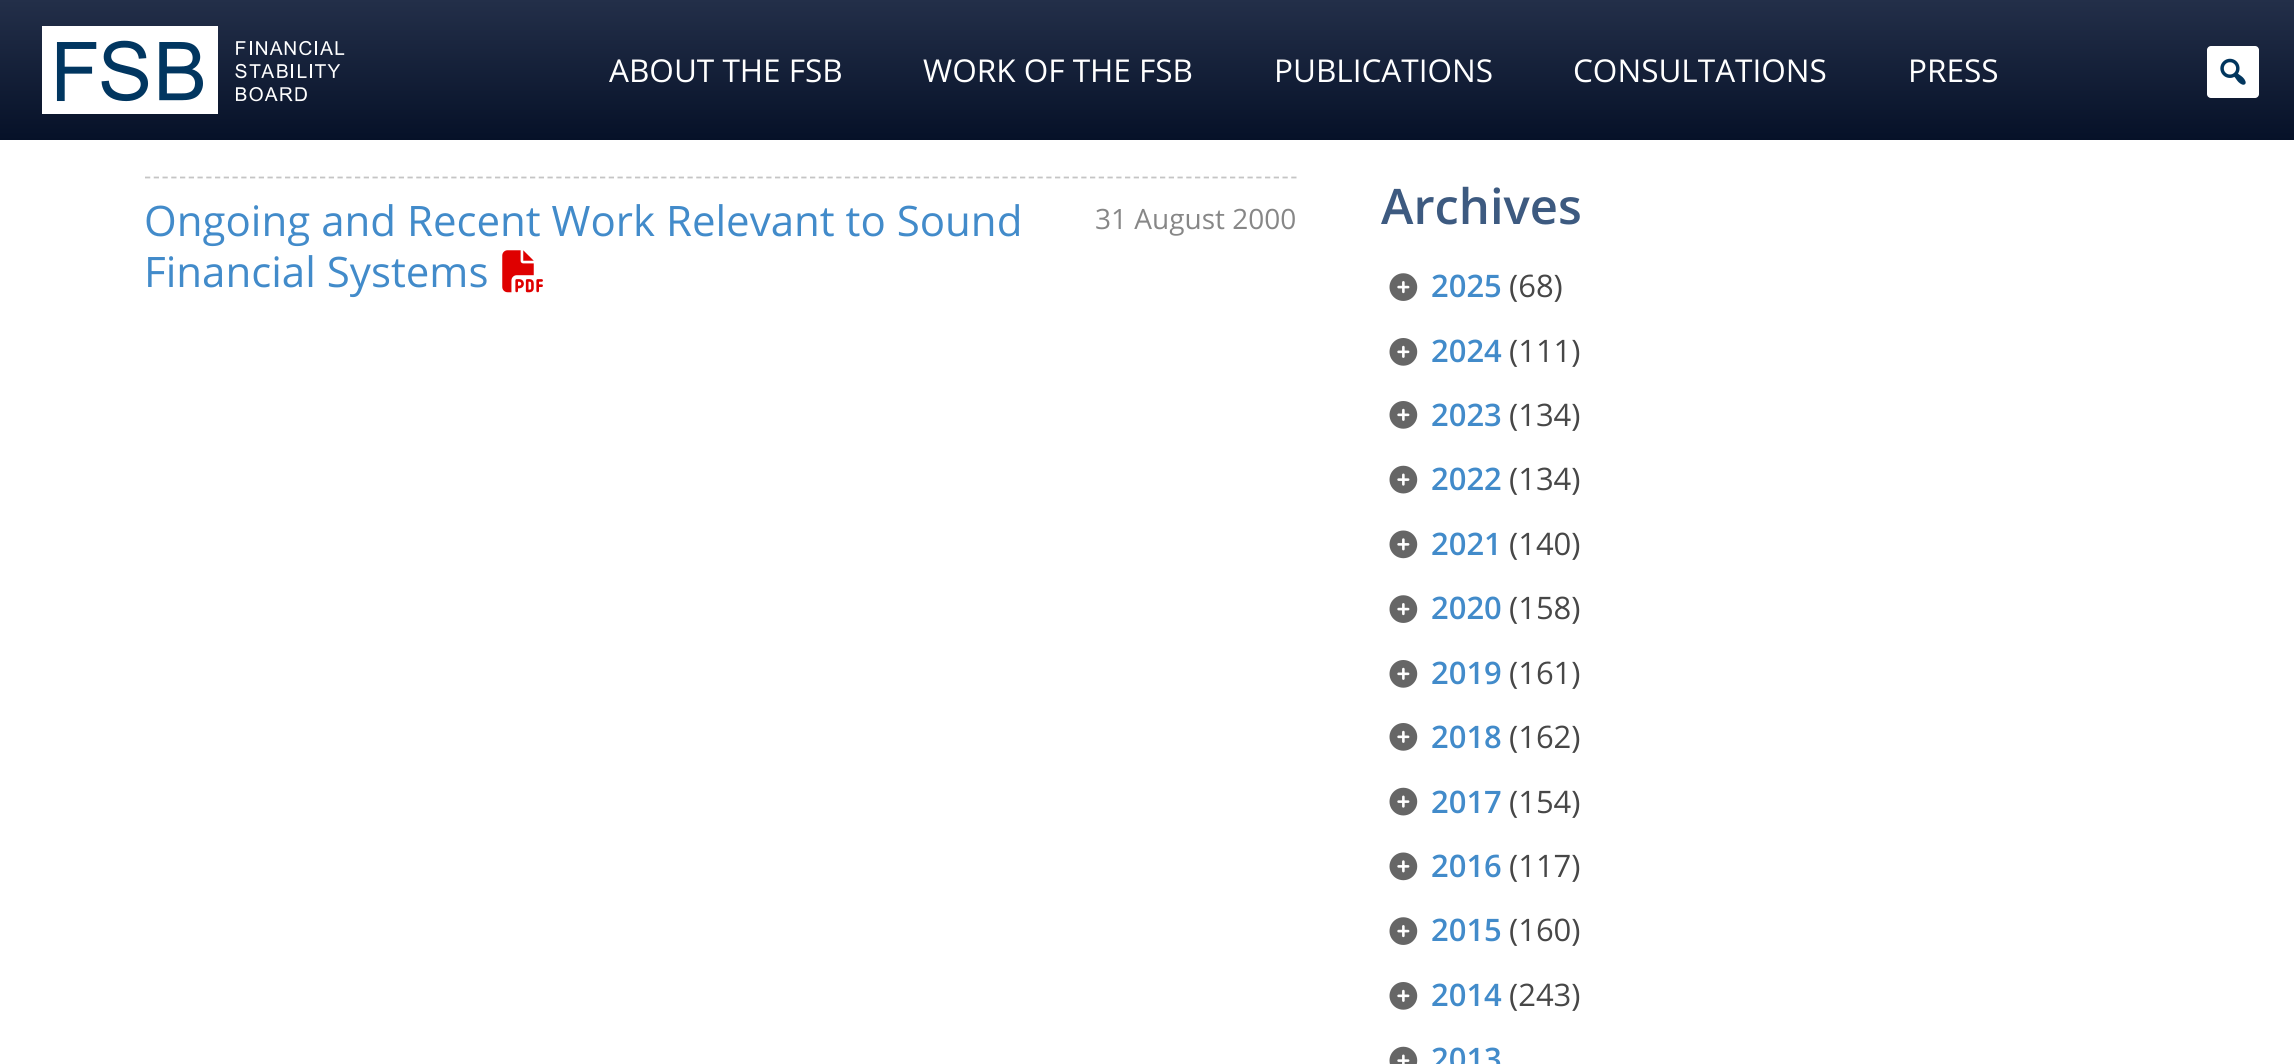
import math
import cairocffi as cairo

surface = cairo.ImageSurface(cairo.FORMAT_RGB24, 2294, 1064)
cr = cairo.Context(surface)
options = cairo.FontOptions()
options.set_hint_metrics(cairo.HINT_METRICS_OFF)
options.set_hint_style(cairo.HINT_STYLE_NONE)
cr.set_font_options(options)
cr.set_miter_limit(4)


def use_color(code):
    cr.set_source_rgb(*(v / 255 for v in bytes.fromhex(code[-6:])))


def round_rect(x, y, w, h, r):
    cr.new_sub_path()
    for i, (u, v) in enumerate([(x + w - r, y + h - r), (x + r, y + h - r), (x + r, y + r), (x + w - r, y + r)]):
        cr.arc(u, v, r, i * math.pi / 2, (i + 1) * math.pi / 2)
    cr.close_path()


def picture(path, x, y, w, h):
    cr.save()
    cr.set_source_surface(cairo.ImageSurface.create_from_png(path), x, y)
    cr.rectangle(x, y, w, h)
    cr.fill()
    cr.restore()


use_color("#ffffff")
cr.paint()
gradient = cairo.LinearGradient(1147, 0, 1147, 140)
gradient.add_color_stop_rgba(0, 0.137, 0.184, 0.286, 1)
gradient.add_color_stop_rgba(1, 0.024, 0.067, 0.157, 1)
cr.set_source(gradient)
cr.rectangle(0, 0, 2294, 140)
cr.fill()
picture("img1.png", 42, 26, 303, 88)
cr.select_font_face("Open Sans")
cr.set_font_size(31.5)
use_color("#ffffff")
cr.move_to(609, 82)
cr.show_text("ABOUT THE FSB")
cr.move_to(923, 82)
cr.show_text("WORK OF THE FSB")
cr.move_to(1274, 82)
cr.show_text("PUBLICATIONS")
cr.move_to(1573, 82)
cr.show_text("CONSULTATIONS")
cr.move_to(1908, 82)
cr.show_text("PRESS")
round_rect(2207, 46, 52, 52, 4)
cr.fill()
picture("img2.png", 2220, 58, 26, 27)
cr.new_path()
cr.move_to(145, 177.5)
cr.line_to(1297, 177.5)
use_color("#c5c5c5")
cr.set_line_width(1.8)
cr.set_dash([5.25, 3.5])
cr.stroke()
cr.set_font_size(42)
use_color("#428bca")
cr.move_to(144, 236)
cr.show_text("Ongoing and Recent Work Relevant to Sound")
cr.move_to(144, 287)
cr.show_text("Financial Systems")
picture("img3.png", 502, 250, 41, 43)
cr.set_font_size(28)
use_color("#878787")
cr.move_to(1095, 229)
cr.show_text("31 August 2000")
cr.select_font_face("Open Sans SemiBold")
cr.set_font_size(49)
use_color("#3d5a80")
cr.move_to(1381, 224)
cr.show_text("Archives")
picture("img4.png", 1389, 273, 29, 28)
cr.set_font_size(31)
use_color("#428bca")
cr.move_to(1431, 297)
cr.show_text("2025")
cr.select_font_face("Open Sans")
use_color("#474747")
cr.move_to(1509, 297)
cr.show_text("(68)")
picture("img5.png", 1389, 338, 29, 28)
cr.select_font_face("Open Sans SemiBold")
use_color("#428bca")
cr.move_to(1431, 362)
cr.show_text("2024")
cr.select_font_face("Open Sans")
use_color("#474747")
cr.move_to(1509, 362)
cr.show_text("(111)")
picture("img5.png", 1389, 401, 29, 28)
cr.select_font_face("Open Sans SemiBold")
use_color("#428bca")
cr.move_to(1431, 426)
cr.show_text("2023")
cr.select_font_face("Open Sans")
use_color("#474747")
cr.move_to(1509, 426)
cr.show_text("(134)")
picture("img6.png", 1389, 465, 29, 29)
cr.select_font_face("Open Sans SemiBold")
use_color("#428bca")
cr.move_to(1431, 490)
cr.show_text("2022")
cr.select_font_face("Open Sans")
use_color("#474747")
cr.move_to(1509, 490)
cr.show_text("(134)")
picture("img7.png", 1389, 530, 29, 29)
cr.select_font_face("Open Sans SemiBold")
use_color("#428bca")
cr.move_to(1431, 555)
cr.show_text("2021")
cr.select_font_face("Open Sans")
use_color("#474747")
cr.move_to(1509, 555)
cr.show_text("(140)")
picture("img4.png", 1389, 595, 29, 28)
cr.select_font_face("Open Sans SemiBold")
use_color("#428bca")
cr.move_to(1431, 619)
cr.show_text("2020")
cr.select_font_face("Open Sans")
use_color("#474747")
cr.move_to(1509, 619)
cr.show_text("(158)")
picture("img5.png", 1389, 660, 29, 28)
cr.select_font_face("Open Sans SemiBold")
use_color("#428bca")
cr.move_to(1431, 684)
cr.show_text("2019")
cr.select_font_face("Open Sans")
use_color("#474747")
cr.move_to(1509, 684)
cr.show_text("(161)")
picture("img5.png", 1389, 723, 29, 28)
cr.select_font_face("Open Sans SemiBold")
use_color("#428bca")
cr.move_to(1431, 748)
cr.show_text("2018")
cr.select_font_face("Open Sans")
use_color("#474747")
cr.move_to(1509, 748)
cr.show_text("(162)")
picture("img6.png", 1389, 787, 29, 29)
cr.select_font_face("Open Sans SemiBold")
use_color("#428bca")
cr.move_to(1431, 813)
cr.show_text("2017")
cr.select_font_face("Open Sans")
use_color("#474747")
cr.move_to(1509, 813)
cr.show_text("(154)")
picture("img7.png", 1389, 852, 29, 29)
cr.select_font_face("Open Sans SemiBold")
use_color("#428bca")
cr.move_to(1431, 877)
cr.show_text("2016")
cr.select_font_face("Open Sans")
use_color("#474747")
cr.move_to(1509, 877)
cr.show_text("(117)")
picture("img4.png", 1389, 917, 29, 28)
cr.select_font_face("Open Sans SemiBold")
use_color("#428bca")
cr.move_to(1431, 941)
cr.show_text("2015")
cr.select_font_face("Open Sans")
use_color("#474747")
cr.move_to(1509, 941)
cr.show_text("(160)")
picture("img5.png", 1389, 982, 29, 28)
cr.select_font_face("Open Sans SemiBold")
use_color("#428bca")
cr.move_to(1431, 1006)
cr.show_text("2014")
cr.select_font_face("Open Sans")
use_color("#474747")
cr.move_to(1509, 1006)
cr.show_text("(243)")
picture("img8.png", 1389, 1046, 29, 18)
cr.select_font_face("Open Sans SemiBold")
use_color("#428bca")
cr.move_to(1431, 1070)
cr.show_text("2013")
surface.write_to_png("result.png")
